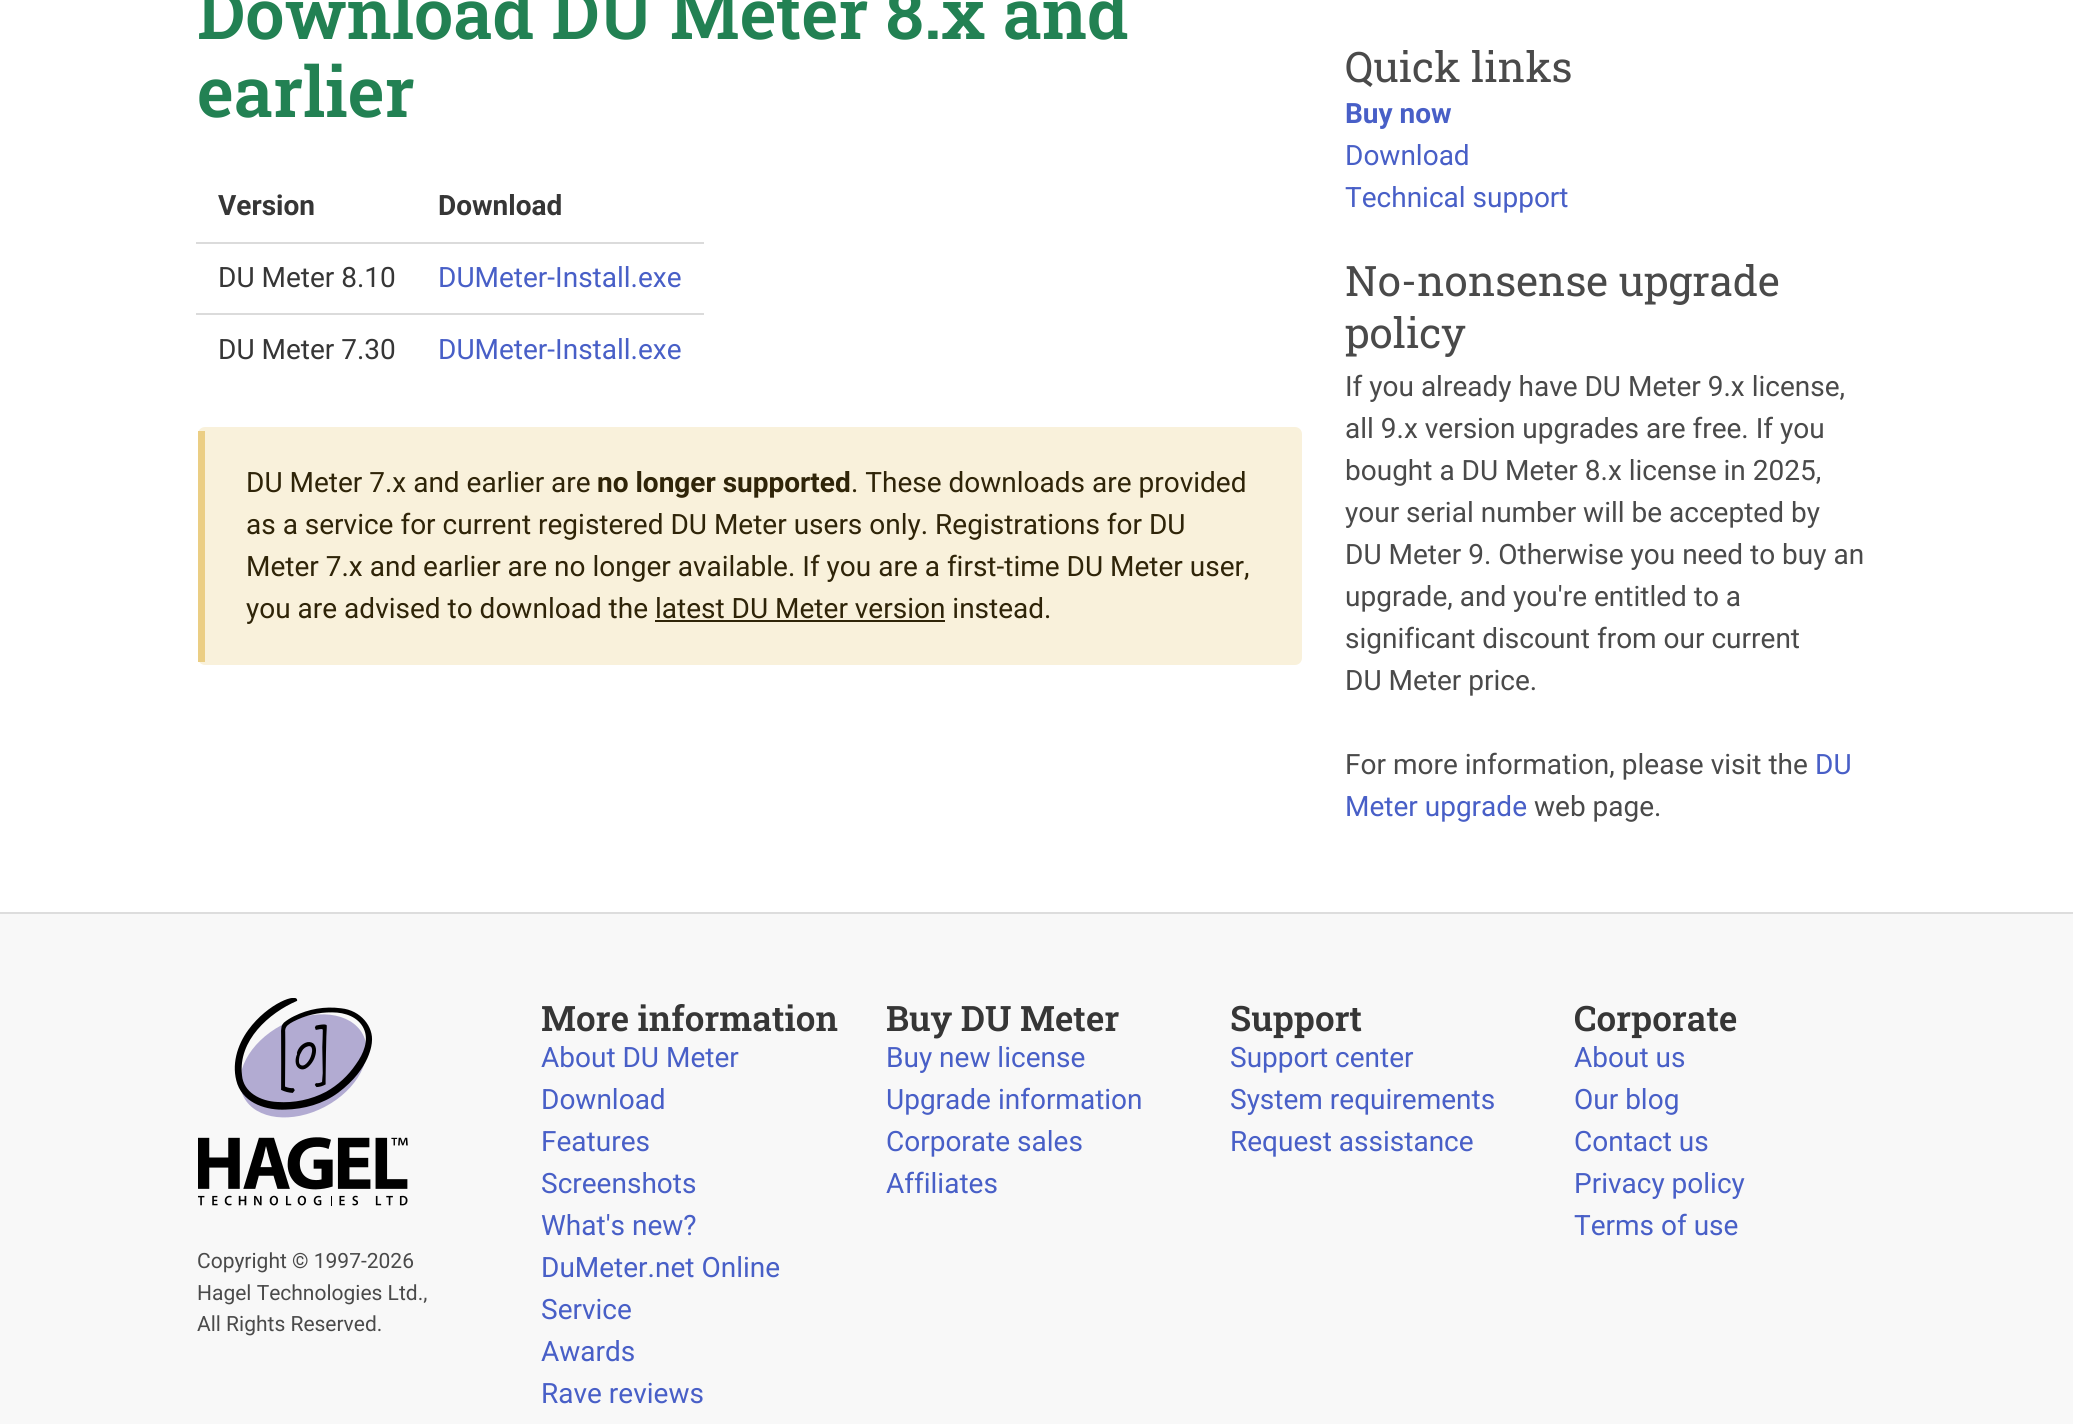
import math
import cairocffi as cairo

surface = cairo.ImageSurface(cairo.FORMAT_RGB24, 2073, 1424)
cr = cairo.Context(surface)
options = cairo.FontOptions()
options.set_hint_metrics(cairo.HINT_METRICS_OFF)
options.set_hint_style(cairo.HINT_STYLE_NONE)
cr.set_font_options(options)
cr.set_miter_limit(4)


def use_color(code):
    cr.set_source_rgb(*(v / 255 for v in bytes.fromhex(code[-6:])))


def round_rect(x, y, w, h, r):
    cr.new_sub_path()
    for i, (u, v) in enumerate([(x + w - r, y + h - r), (x + r, y + h - r), (x + r, y + r), (x + w - r, y + r)]):
        cr.arc(u, v, r, i * math.pi / 2, (i + 1) * math.pi / 2)
    cr.close_path()


def picture(path, x, y, w, h):
    cr.save()
    cr.set_source_surface(cairo.ImageSurface.create_from_png(path), x, y)
    cr.rectangle(x, y, w, h)
    cr.fill()
    cr.restore()


use_color("#ffffff")
cr.paint()
cr.select_font_face("Roboto Slab SemiBold")
cr.set_font_size(70)
use_color("#228153")
cr.move_to(197, 39)
cr.show_text("Download DU Meter 8.x and")
cr.move_to(197, 117)
cr.show_text("earlier")
cr.select_font_face("Roboto", cairo.FONT_SLANT_NORMAL, cairo.FONT_WEIGHT_BOLD)
cr.set_font_size(28)
use_color("#363636")
cr.move_to(218, 215)
cr.show_text("Version")
use_color("#dbdbdb")
cr.rectangle(196, 242, 508, 2)
cr.fill()
use_color("#363636")
cr.move_to(438, 215)
cr.show_text("Download")
cr.select_font_face("Roboto")
cr.move_to(218, 287)
cr.show_text("DU Meter 8.10")
use_color("#dbdbdb")
cr.rectangle(196, 313, 508, 2)
cr.fill()
use_color("#485fc7")
cr.move_to(438, 287)
cr.show_text("DUMeter-Install.exe")
use_color("#363636")
cr.move_to(218, 359)
cr.show_text("DU Meter 7.30")
use_color("#485fc7")
cr.move_to(438, 359)
cr.show_text("DUMeter-Install.exe")
use_color("#f9f1db")
round_rect(198, 427, 1104, 238, 7)
cr.fill()
use_color("#ebce84")
cr.rectangle(198, 431, 7, 231)
cr.fill()
use_color("#2f2408")
cr.move_to(246, 492)
cr.show_text("DU Meter 7.x and earlier are")
cr.select_font_face("Roboto", cairo.FONT_SLANT_NORMAL, cairo.FONT_WEIGHT_BOLD)
cr.move_to(597, 492)
cr.show_text("no longer supported")
cr.select_font_face("Roboto")
cr.move_to(851, 492)
cr.show_text(". These downloads are provided")
cr.move_to(246, 534)
cr.show_text("as a service for current registered DU Meter users only. Registrations for DU")
cr.move_to(246, 576)
cr.show_text("Meter 7.x and earlier are no longer available. If you are a first-time DU Meter user,")
cr.move_to(246, 618)
cr.show_text("you are advised to download the latest DU Meter version instead.")
cr.rectangle(655, 620, 290, 2)
cr.fill()
cr.select_font_face("Roboto Slab")
cr.set_font_size(42)
use_color("#4a4a4a")
cr.move_to(1345, 82)
cr.show_text("Quick links")
cr.select_font_face("Roboto", cairo.FONT_SLANT_NORMAL, cairo.FONT_WEIGHT_BOLD)
cr.set_font_size(28)
use_color("#485fc7")
cr.move_to(1345, 123)
cr.show_text("Buy now")
cr.select_font_face("Roboto")
cr.move_to(1345, 165)
cr.show_text("Download")
cr.move_to(1345, 207)
cr.show_text("Technical support")
cr.select_font_face("Roboto Slab")
cr.set_font_size(42)
use_color("#4a4a4a")
cr.move_to(1345, 296)
cr.show_text("No-nonsense upgrade")
cr.move_to(1345, 348)
cr.show_text("policy")
cr.select_font_face("Roboto")
cr.set_font_size(28)
cr.move_to(1345, 396)
cr.show_text("If you already have DU Meter 9.x license,")
cr.move_to(1345, 438)
cr.show_text("all 9.x version upgrades are free. If you")
cr.move_to(1345, 480)
cr.show_text("bought a DU Meter 8.x license in 2025,")
cr.move_to(1345, 522)
cr.show_text("your serial number will be accepted by")
cr.move_to(1345, 564)
cr.show_text("DU Meter 9. Otherwise you need to buy an")
cr.move_to(1345, 606)
cr.show_text("upgrade, and you're entitled to a")
cr.move_to(1345, 648)
cr.show_text("significant discount from our current")
cr.move_to(1345, 690)
cr.show_text("DU Meter price.")
cr.move_to(1345, 774)
cr.show_text("For more information, please visit the")
use_color("#485fc7")
cr.move_to(1815, 774)
cr.show_text("DU")
cr.move_to(1345, 816)
cr.show_text("Meter upgrade")
use_color("#4a4a4a")
cr.move_to(1534, 816)
cr.show_text("web page.")
use_color("#f8f8f8")
cr.rectangle(0, 914, 2073, 510)
cr.fill()
use_color("#dddddd")
cr.rectangle(0, 912, 2073, 2)
cr.fill()
cr.select_font_face("Roboto Slab SemiBold")
cr.set_font_size(35)
use_color("#363636")
cr.move_to(541, 1031)
cr.show_text("More information")
cr.select_font_face("Roboto")
cr.set_font_size(28)
use_color("#485fc7")
cr.move_to(541, 1067)
cr.show_text("About DU Meter")
cr.move_to(541, 1109)
cr.show_text("Download")
cr.move_to(541, 1151)
cr.show_text("Features")
cr.move_to(541, 1193)
cr.show_text("Screenshots")
cr.move_to(541, 1235)
cr.show_text("What's new?")
cr.move_to(541, 1277)
cr.show_text("DuMeter.net Online")
cr.move_to(541, 1319)
cr.show_text("Service")
cr.move_to(541, 1361)
cr.show_text("Awards")
cr.move_to(541, 1403)
cr.show_text("Rave reviews")
cr.select_font_face("Roboto Slab SemiBold")
cr.set_font_size(35)
use_color("#363636")
cr.move_to(886, 1031)
cr.show_text("Buy DU Meter")
cr.select_font_face("Roboto")
cr.set_font_size(28)
use_color("#485fc7")
cr.move_to(886, 1067)
cr.show_text("Buy new license")
cr.move_to(886, 1109)
cr.show_text("Upgrade information")
cr.move_to(886, 1151)
cr.show_text("Corporate sales")
cr.move_to(886, 1193)
cr.show_text("Affiliates")
cr.select_font_face("Roboto Slab SemiBold")
cr.set_font_size(35)
use_color("#363636")
cr.move_to(1230, 1031)
cr.show_text("Support")
cr.select_font_face("Roboto")
cr.set_font_size(28)
use_color("#485fc7")
cr.move_to(1230, 1067)
cr.show_text("Support center")
cr.move_to(1230, 1109)
cr.show_text("System requirements")
cr.move_to(1230, 1151)
cr.show_text("Request assistance")
cr.select_font_face("Roboto Slab SemiBold")
cr.set_font_size(35)
use_color("#363636")
cr.move_to(1574, 1031)
cr.show_text("Corporate")
cr.select_font_face("Roboto")
cr.set_font_size(28)
use_color("#485fc7")
cr.move_to(1574, 1067)
cr.show_text("About us")
cr.move_to(1574, 1109)
cr.show_text("Our blog")
cr.move_to(1574, 1151)
cr.show_text("Contact us")
cr.move_to(1574, 1193)
cr.show_text("Privacy policy")
cr.move_to(1574, 1235)
cr.show_text("Terms of use")
picture("img1.png", 198, 998, 210, 208)
cr.set_font_size(21)
use_color("#4a4a4a")
cr.move_to(197, 1268)
cr.show_text("Copyright © 1997-2026")
cr.move_to(197, 1300)
cr.show_text("Hagel Technologies Ltd.,")
cr.move_to(197, 1331)
cr.show_text("All Rights Reserved.")
surface.write_to_png("result.png")
